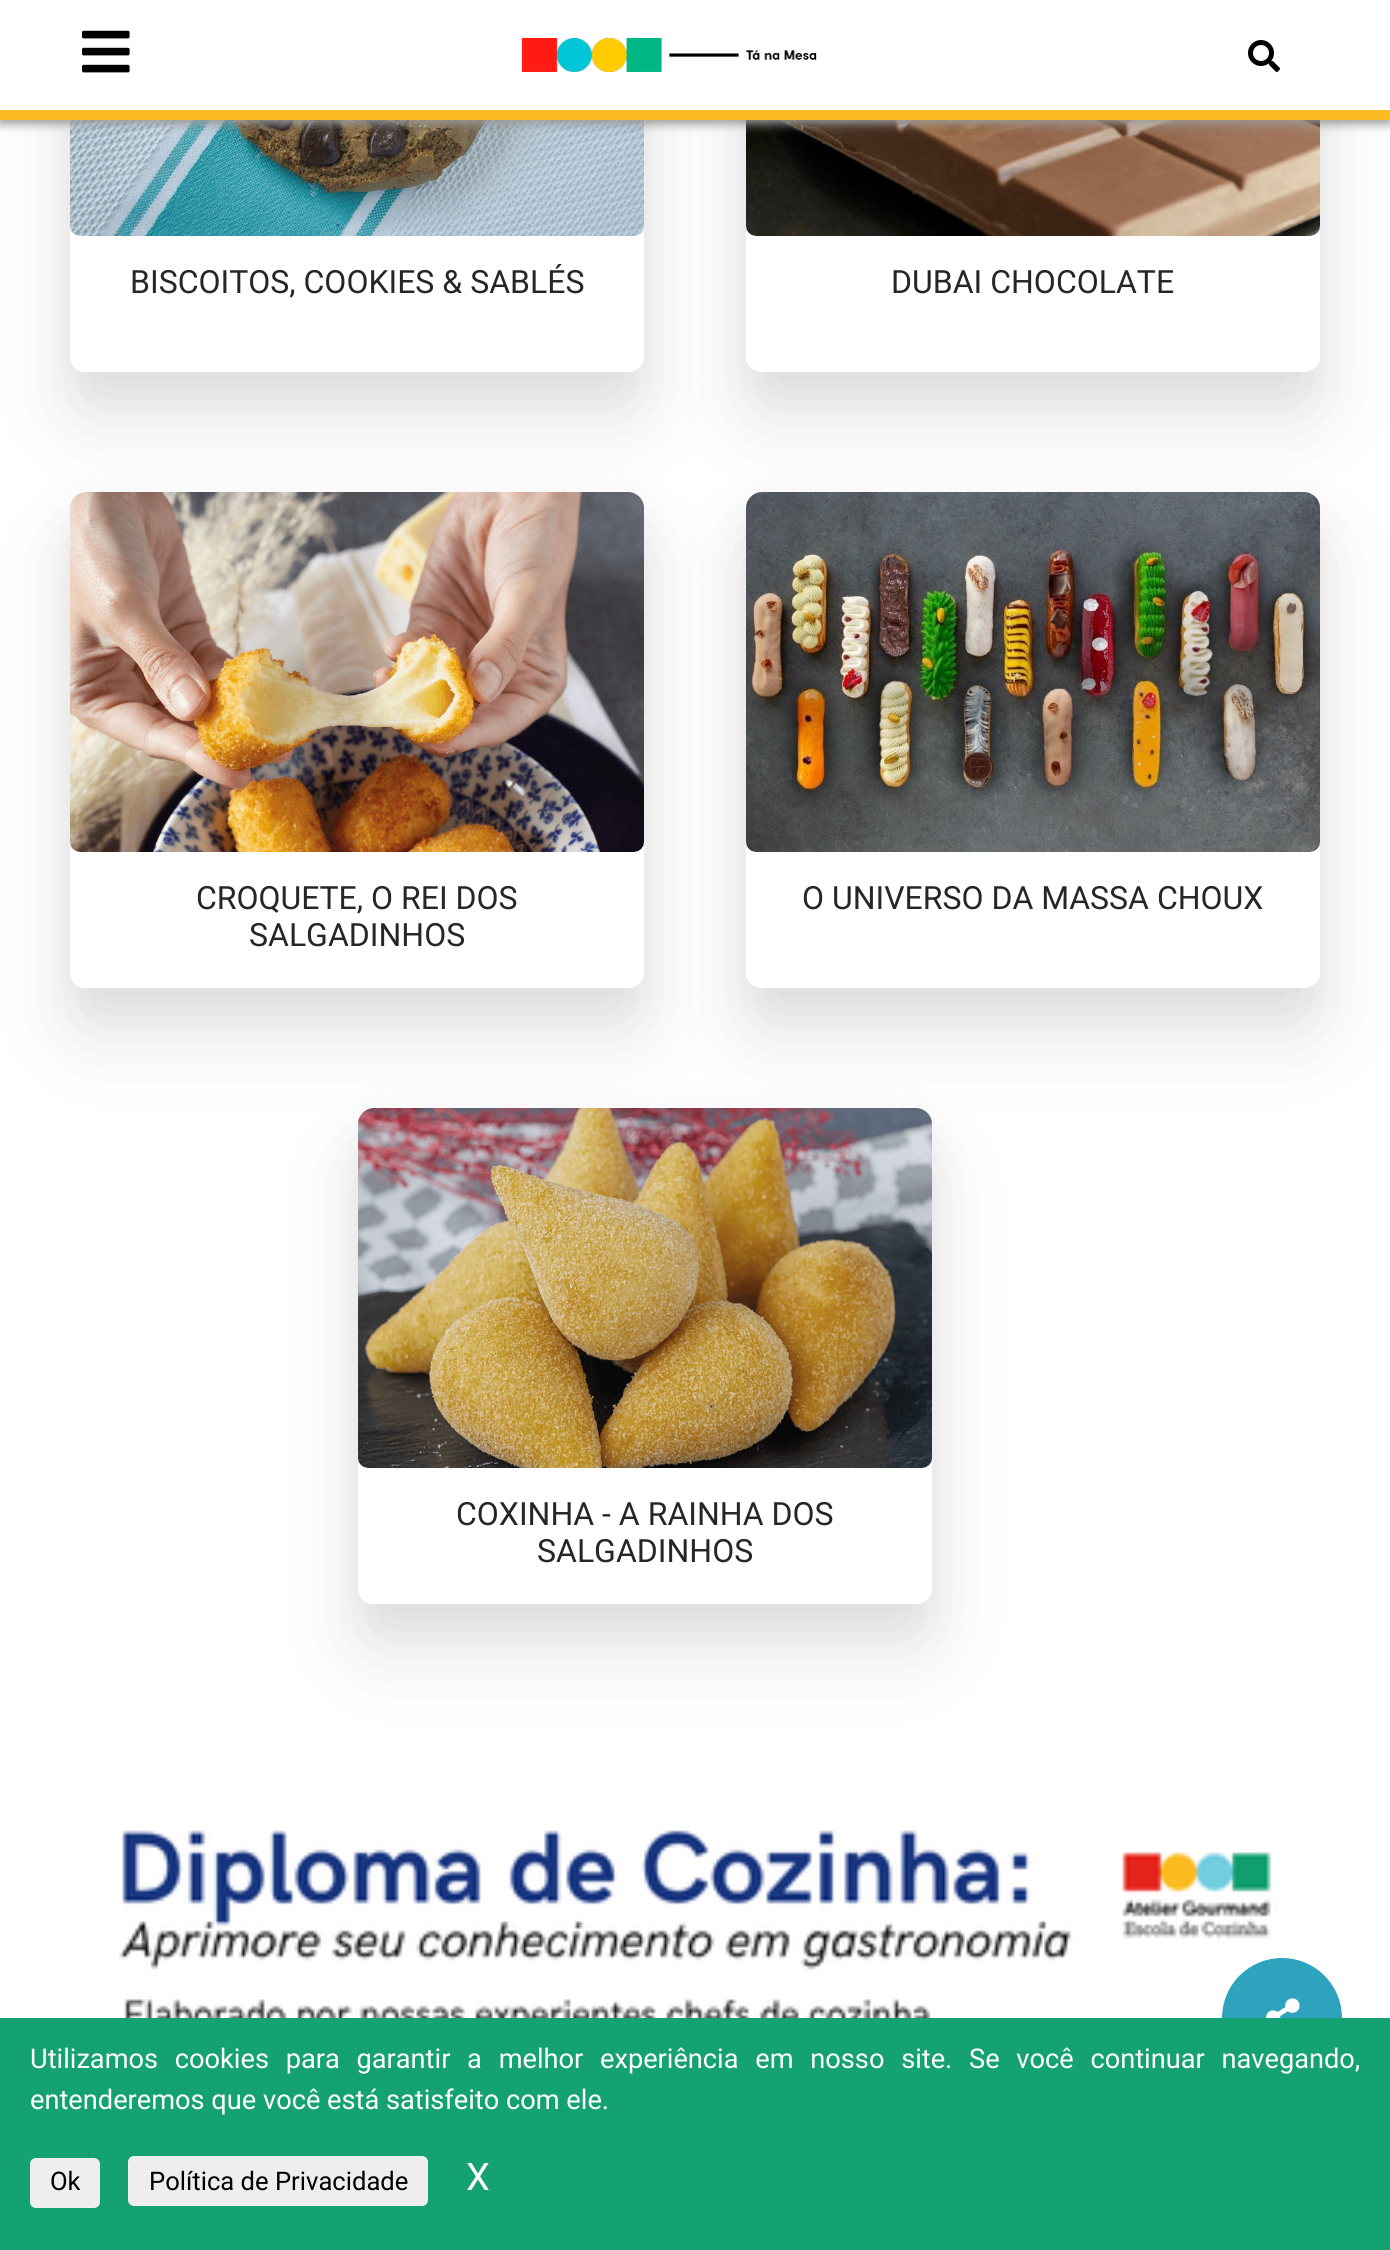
import math
import cairocffi as cairo

surface = cairo.ImageSurface(cairo.FORMAT_RGB24, 1390, 2250)
cr = cairo.Context(surface)
options = cairo.FontOptions()
options.set_hint_metrics(cairo.HINT_METRICS_OFF)
options.set_hint_style(cairo.HINT_STYLE_NONE)
cr.set_font_options(options)
cr.set_miter_limit(4)


def use_color(code):
    cr.set_source_rgb(*(v / 255 for v in bytes.fromhex(code[-6:])))


def spaced_text(x, y, s, letter, word):
    cr.move_to(x, y)
    for ch in s:
        cr.show_text(ch)
        cr.rel_move_to(letter + word * (ch == ' '), 0)


def round_rect(x, y, w, h, r):
    cr.new_sub_path()
    for i, (u, v) in enumerate([(x + w - r, y + h - r), (x + r, y + h - r), (x + r, y + r), (x + w - r, y + r)]):
        cr.arc(u, v, r, i * math.pi / 2, (i + 1) * math.pi / 2)
    cr.close_path()


def shadow(x, y, w, h, r, blur, alpha):
    cr.push_group_with_content(cairo.CONTENT_ALPHA)
    cr.set_operator(cairo.OPERATOR_SOURCE)
    for i in range(15, -16, -2):
        e = blur * i / 6
        if min(w, h) + 2 * e > 0:
            cr.set_source_rgba(0, 0, 0, alpha * math.erfc((i - 1) / 8.5) / 2)
            round_rect(x - e, y - e, w + 2 * e, h + 2 * e, max(0, min(r + e + blur * .6, min(w, h) / 2 + e)))
            cr.fill()
    cr.mask(cr.pop_group())


def picture(path, x, y, w, h):
    cr.save()
    cr.set_source_surface(cairo.ImageSurface.create_from_png(path), x, y)
    cr.rectangle(x, y, w, h)
    cr.fill()
    cr.restore()


use_color("#ffffff")
cr.paint()
cr.save()
cr.set_fill_rule(cairo.FILL_RULE_EVEN_ODD)
cr.new_path()
cr.move_to(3, 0)
cr.line_to(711, 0)
cr.line_to(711, 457)
cr.line_to(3, 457)
cr.close_path()
cr.move_to(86, -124)
cr.line_to(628, -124)
cr.curve_to(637, -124, 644, -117, 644, -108)
cr.line_to(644, 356)
cr.curve_to(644, 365, 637, 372, 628, 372)
cr.line_to(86, 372)
cr.curve_to(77, 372, 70, 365, 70, 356)
cr.line_to(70, -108)
cr.curve_to(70, -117, 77, -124, 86, -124)
cr.close_path()
cr.clip()
use_color("#000000")
shadow(70, -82, 574, 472, 16, 22, 0.06)
cr.restore()
cr.save()
cr.set_fill_rule(cairo.FILL_RULE_EVEN_ODD)
cr.new_path()
cr.move_to(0, 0)
cr.line_to(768, 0)
cr.line_to(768, 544)
cr.line_to(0, 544)
cr.close_path()
cr.move_to(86, -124)
cr.line_to(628, -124)
cr.curve_to(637, -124, 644, -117, 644, -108)
cr.line_to(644, 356)
cr.curve_to(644, 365, 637, 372, 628, 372)
cr.line_to(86, 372)
cr.curve_to(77, 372, 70, 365, 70, 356)
cr.line_to(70, -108)
cr.curve_to(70, -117, 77, -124, 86, -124)
cr.close_path()
cr.clip()
use_color("#000000")
shadow(70, -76, 574, 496, 16, 41, 0.1)
cr.restore()
picture("img4.png", 70, 120, 574, 116)
cr.save()
cr.set_fill_rule(cairo.FILL_RULE_EVEN_ODD)
cr.new_path()
cr.move_to(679, 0)
cr.line_to(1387, 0)
cr.line_to(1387, 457)
cr.line_to(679, 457)
cr.close_path()
cr.move_to(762, -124)
cr.line_to(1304, -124)
cr.curve_to(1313, -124, 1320, -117, 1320, -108)
cr.line_to(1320, 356)
cr.curve_to(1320, 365, 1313, 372, 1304, 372)
cr.line_to(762, 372)
cr.curve_to(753, 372, 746, 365, 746, 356)
cr.line_to(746, -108)
cr.curve_to(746, -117, 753, -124, 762, -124)
cr.close_path()
cr.clip()
use_color("#000000")
shadow(746, -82, 574, 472, 16, 22, 0.06)
cr.restore()
cr.save()
cr.set_fill_rule(cairo.FILL_RULE_EVEN_ODD)
cr.new_path()
cr.move_to(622, 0)
cr.line_to(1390, 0)
cr.line_to(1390, 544)
cr.line_to(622, 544)
cr.close_path()
cr.move_to(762, -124)
cr.line_to(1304, -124)
cr.curve_to(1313, -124, 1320, -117, 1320, -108)
cr.line_to(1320, 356)
cr.curve_to(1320, 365, 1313, 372, 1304, 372)
cr.line_to(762, 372)
cr.curve_to(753, 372, 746, 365, 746, 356)
cr.line_to(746, -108)
cr.curve_to(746, -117, 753, -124, 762, -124)
cr.close_path()
cr.clip()
use_color("#000000")
shadow(746, -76, 574, 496, 16, 41, 0.1)
cr.restore()
picture("img5.png", 746, 120, 574, 116)
use_color("#999999")
shadow(0, 4, 1390, 120, 0, 5, 1)
use_color("#ffffff")
cr.rectangle(0, 0, 1390, 110)
cr.fill()
use_color("#fbbb25")
cr.rectangle(0, 110, 1390, 10)
cr.fill()
picture("img1.png", 82, 30, 48, 43)
picture("img2.png", 521, 37, 296, 35)
picture("img3.png", 1248, 40, 32, 32)
cr.select_font_face("Roboto")
cr.set_font_size(32)
use_color("#272626")
cr.move_to(130, 293)
cr.show_text("BISCOITOS, COOKIES & SABLÉS")
cr.move_to(891, 293)
cr.show_text("DUBAI CHOCOLATE")
cr.save()
cr.set_fill_rule(cairo.FILL_RULE_EVEN_ODD)
cr.new_path()
cr.move_to(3, 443)
cr.line_to(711, 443)
cr.line_to(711, 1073)
cr.line_to(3, 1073)
cr.close_path()
cr.move_to(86, 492)
cr.line_to(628, 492)
cr.curve_to(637, 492, 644, 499, 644, 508)
cr.line_to(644, 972)
cr.curve_to(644, 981, 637, 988, 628, 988)
cr.line_to(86, 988)
cr.curve_to(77, 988, 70, 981, 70, 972)
cr.line_to(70, 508)
cr.curve_to(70, 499, 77, 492, 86, 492)
cr.close_path()
cr.clip()
use_color("#000000")
shadow(70, 510, 574, 496, 16, 22, 0.06)
cr.restore()
cr.save()
cr.set_fill_rule(cairo.FILL_RULE_EVEN_ODD)
cr.new_path()
cr.move_to(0, 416)
cr.line_to(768, 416)
cr.line_to(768, 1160)
cr.line_to(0, 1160)
cr.close_path()
cr.move_to(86, 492)
cr.line_to(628, 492)
cr.curve_to(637, 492, 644, 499, 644, 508)
cr.line_to(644, 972)
cr.curve_to(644, 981, 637, 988, 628, 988)
cr.line_to(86, 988)
cr.curve_to(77, 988, 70, 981, 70, 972)
cr.line_to(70, 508)
cr.curve_to(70, 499, 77, 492, 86, 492)
cr.close_path()
cr.clip()
use_color("#000000")
shadow(70, 540, 574, 496, 16, 41, 0.1)
cr.restore()
picture("img6.png", 70, 492, 574, 360)
cr.move_to(196, 909)
cr.show_text("CROQUETE, O REI DOS")
cr.move_to(249, 946)
cr.show_text("SALGADINHOS")
cr.save()
cr.set_fill_rule(cairo.FILL_RULE_EVEN_ODD)
cr.new_path()
cr.move_to(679, 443)
cr.line_to(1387, 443)
cr.line_to(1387, 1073)
cr.line_to(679, 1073)
cr.close_path()
cr.move_to(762, 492)
cr.line_to(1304, 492)
cr.curve_to(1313, 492, 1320, 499, 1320, 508)
cr.line_to(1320, 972)
cr.curve_to(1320, 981, 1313, 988, 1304, 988)
cr.line_to(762, 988)
cr.curve_to(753, 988, 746, 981, 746, 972)
cr.line_to(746, 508)
cr.curve_to(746, 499, 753, 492, 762, 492)
cr.close_path()
cr.clip()
use_color("#000000")
shadow(746, 510, 574, 496, 16, 22, 0.06)
cr.restore()
cr.save()
cr.set_fill_rule(cairo.FILL_RULE_EVEN_ODD)
cr.new_path()
cr.move_to(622, 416)
cr.line_to(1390, 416)
cr.line_to(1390, 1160)
cr.line_to(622, 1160)
cr.close_path()
cr.move_to(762, 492)
cr.line_to(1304, 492)
cr.curve_to(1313, 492, 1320, 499, 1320, 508)
cr.line_to(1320, 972)
cr.curve_to(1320, 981, 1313, 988, 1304, 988)
cr.line_to(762, 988)
cr.curve_to(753, 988, 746, 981, 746, 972)
cr.line_to(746, 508)
cr.curve_to(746, 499, 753, 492, 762, 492)
cr.close_path()
cr.clip()
use_color("#000000")
shadow(746, 540, 574, 496, 16, 41, 0.1)
cr.restore()
picture("img7.png", 746, 492, 574, 360)
cr.move_to(802, 909)
cr.show_text("O UNIVERSO DA MASSA CHOUX")
cr.save()
cr.set_fill_rule(cairo.FILL_RULE_EVEN_ODD)
cr.new_path()
cr.move_to(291, 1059)
cr.line_to(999, 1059)
cr.line_to(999, 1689)
cr.line_to(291, 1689)
cr.close_path()
cr.move_to(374, 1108)
cr.line_to(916, 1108)
cr.curve_to(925, 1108, 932, 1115, 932, 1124)
cr.line_to(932, 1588)
cr.curve_to(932, 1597, 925, 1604, 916, 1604)
cr.line_to(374, 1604)
cr.curve_to(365, 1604, 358, 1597, 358, 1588)
cr.line_to(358, 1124)
cr.curve_to(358, 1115, 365, 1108, 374, 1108)
cr.close_path()
cr.clip()
use_color("#000000")
shadow(358, 1126, 574, 496, 16, 22, 0.06)
cr.restore()
cr.save()
cr.set_fill_rule(cairo.FILL_RULE_EVEN_ODD)
cr.new_path()
cr.move_to(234, 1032)
cr.line_to(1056, 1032)
cr.line_to(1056, 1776)
cr.line_to(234, 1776)
cr.close_path()
cr.move_to(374, 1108)
cr.line_to(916, 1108)
cr.curve_to(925, 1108, 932, 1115, 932, 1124)
cr.line_to(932, 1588)
cr.curve_to(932, 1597, 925, 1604, 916, 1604)
cr.line_to(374, 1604)
cr.curve_to(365, 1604, 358, 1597, 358, 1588)
cr.line_to(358, 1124)
cr.curve_to(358, 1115, 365, 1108, 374, 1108)
cr.close_path()
cr.clip()
use_color("#000000")
shadow(358, 1156, 574, 496, 16, 41, 0.1)
cr.restore()
picture("img8.png", 358, 1108, 574, 360)
cr.move_to(456, 1525)
cr.show_text("COXINHA - A RAINHA DOS")
cr.move_to(537, 1562)
cr.show_text("SALGADINHOS")
picture("img10.png", 70, 1830, 1250, 188)
use_color("#2ea3bd")
cr.arc(1282, 2018, 60, 0, 2 * math.pi)
cr.fill()
picture("img9.png", 1266, 1998, 34, 20)
use_color("#15a273")
cr.rectangle(0, 2018, 1390, 232)
cr.fill()
cr.set_font_size(27.2)
use_color("#ffffff")
spaced_text(30, 2068, "Utilizamos cookies para garantir a melhor experiência em nosso site.", 0, 10)
spaced_text(969, 2068, "Se você continuar navegando,", 0, 10)
cr.move_to(30, 2109)
cr.show_text("entenderemos que você está satisfeito com ele.")
use_color("#eeeeee")
round_rect(30, 2158, 70, 50, 6)
cr.fill()
cr.set_font_size(25.6)
use_color("#000000")
cr.move_to(50, 2190)
cr.show_text("Ok")
use_color("#eeeeee")
round_rect(128, 2156, 300, 50, 6)
cr.fill()
use_color("#000000")
cr.move_to(149, 2190)
cr.show_text("Política de Privacidade")
cr.set_font_size(38)
use_color("#ffffff")
cr.move_to(466, 2190)
cr.show_text("X")
surface.write_to_png("result.png")
